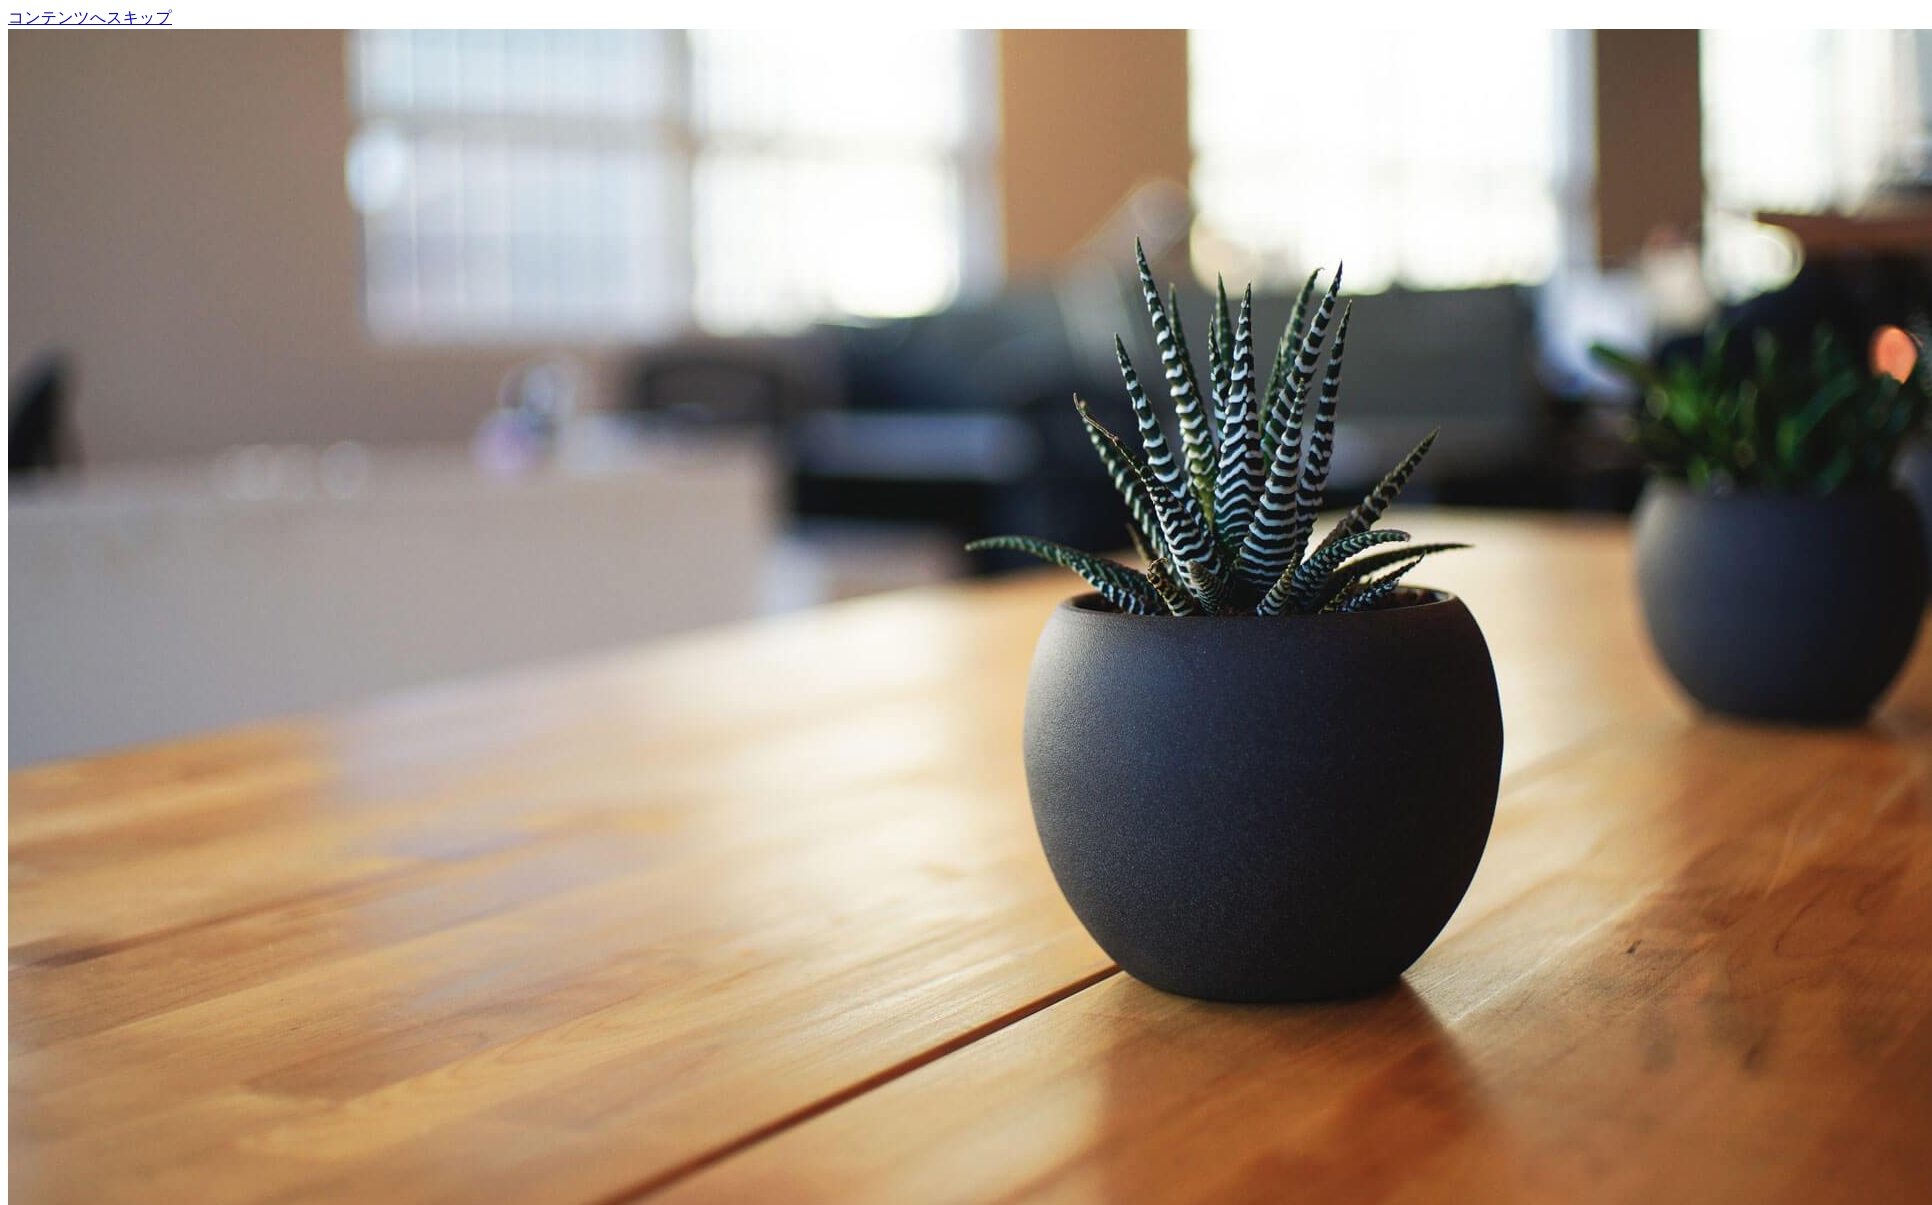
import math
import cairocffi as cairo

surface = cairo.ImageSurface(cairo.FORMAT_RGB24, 1932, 1205)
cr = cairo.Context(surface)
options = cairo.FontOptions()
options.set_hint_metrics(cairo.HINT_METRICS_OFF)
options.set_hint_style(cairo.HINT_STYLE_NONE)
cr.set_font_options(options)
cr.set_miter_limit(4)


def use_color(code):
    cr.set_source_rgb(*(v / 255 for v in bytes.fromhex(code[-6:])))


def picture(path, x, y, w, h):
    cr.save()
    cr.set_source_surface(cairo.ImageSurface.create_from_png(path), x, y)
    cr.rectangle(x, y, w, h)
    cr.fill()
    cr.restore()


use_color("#ffffff")
cr.paint()
use_color("#0000ee")
cr.rectangle(8, 24, 164, 1)
cr.fill()
cr.select_font_face("WenQuanYi Zen Hei Medium")
cr.set_font_size(16)
cr.move_to(8, 23)
cr.show_text("コンテンツへスキップ")
picture("img1.png", 8, 29, 1924, 1176)
surface.write_to_png("result.png")
